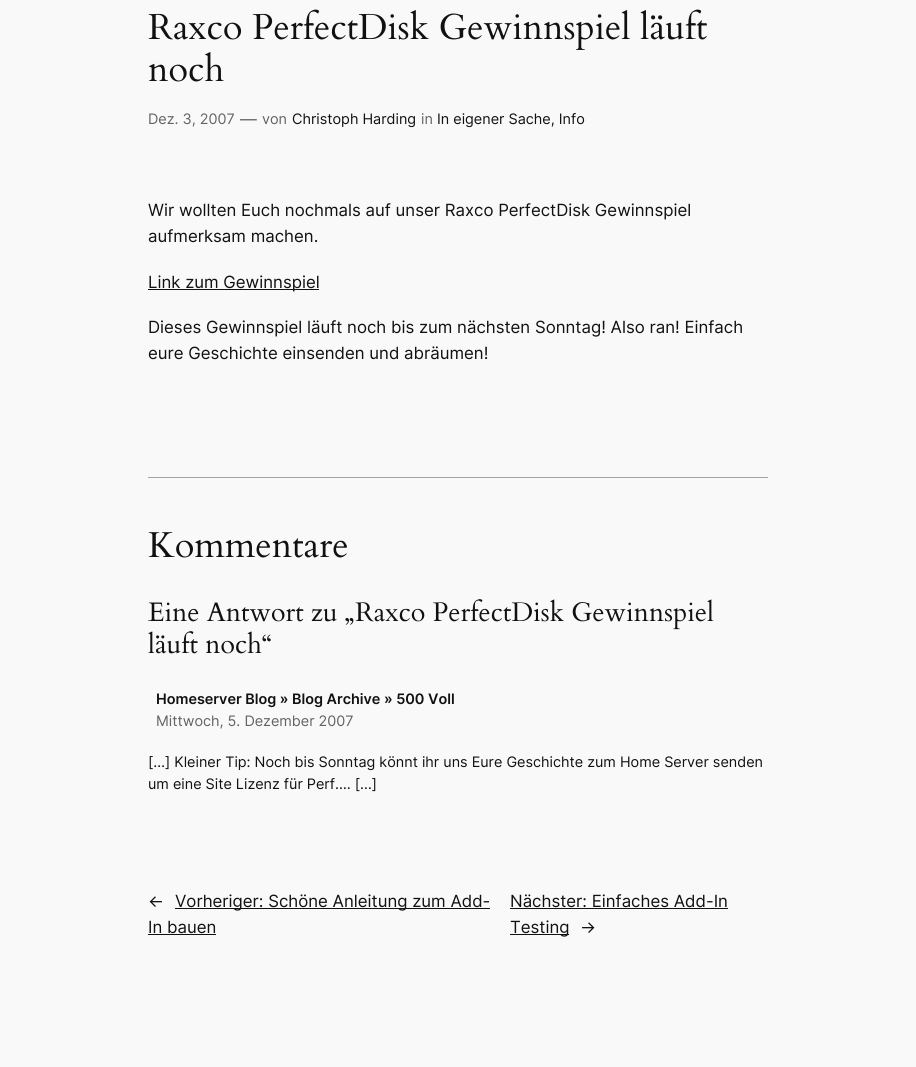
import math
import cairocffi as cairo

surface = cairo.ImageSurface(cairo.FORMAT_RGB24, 916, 1067)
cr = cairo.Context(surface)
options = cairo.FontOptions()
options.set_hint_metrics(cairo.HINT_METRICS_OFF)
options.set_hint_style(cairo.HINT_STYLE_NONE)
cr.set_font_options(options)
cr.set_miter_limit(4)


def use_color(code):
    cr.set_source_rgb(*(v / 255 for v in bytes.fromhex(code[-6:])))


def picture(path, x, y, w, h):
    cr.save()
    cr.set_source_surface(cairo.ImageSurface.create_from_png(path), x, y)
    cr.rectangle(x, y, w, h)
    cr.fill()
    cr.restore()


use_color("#f9f9f9")
cr.paint()
picture("img1.png", 148, 9, 559, 41)
picture("img2.png", 149, 52, 75, 30)
cr.select_font_face("Inter")
cr.set_font_size(14.4)
use_color("#636363")
cr.move_to(148, 124)
cr.show_text("Dez. 3, 2007")
cr.set_font_size(16.8)
cr.move_to(240, 125)
cr.show_text("—")
cr.set_font_size(14.4)
cr.move_to(262, 124)
cr.show_text("von")
use_color("#111111")
cr.move_to(292, 124)
cr.show_text("Christoph Harding")
use_color("#636363")
cr.move_to(421, 124)
cr.show_text("in")
use_color("#111111")
cr.move_to(437, 124)
cr.show_text("In eigener Sache, Info")
cr.set_font_size(16.8)
cr.move_to(148, 216)
cr.show_text("Wir wollten Euch nochmals auf unser Raxco PerfectDisk Gewinnspiel")
cr.move_to(148, 242)
cr.show_text("aufmerksam machen.")
cr.rectangle(148, 289, 171, 1)
cr.fill()
cr.move_to(148, 288)
cr.show_text("Link zum Gewinnspiel")
cr.move_to(148, 333)
cr.show_text("Dieses Gewinnspiel läuft noch bis zum nächsten Sonntag! Also ran! Einfach")
cr.move_to(148, 359)
cr.show_text("eure Geschichte einsenden und abräumen!")
use_color("#a4a4a4")
cr.rectangle(148, 477, 620, 1)
cr.fill()
picture("img3.png", 148, 532, 199, 26)
picture("img4.png", 148, 599, 566, 31)
picture("img5.png", 148, 631, 123, 23)
cr.select_font_face("Inter SemiBold")
cr.set_font_size(14.4)
use_color("#111111")
cr.move_to(156, 704)
cr.show_text("Homeserver Blog » Blog Archive » 500 Voll")
cr.select_font_face("Inter")
use_color("#636363")
cr.move_to(156, 726)
cr.show_text("Mittwoch, 5. Dezember 2007")
use_color("#111111")
cr.move_to(148, 767)
cr.show_text("[…] Kleiner Tip: Noch bis Sonntag könnt ihr uns Eure Geschichte zum Home Server senden")
cr.move_to(148, 789)
cr.show_text("um eine Site Lizenz für Perf…. […]")
cr.set_font_size(16.8)
cr.move_to(148, 907)
cr.show_text("←")
cr.rectangle(175, 908, 315, 1)
cr.fill()
cr.move_to(175, 907)
cr.show_text("Vorheriger: Schöne Anleitung zum Add-")
cr.move_to(148, 933)
cr.show_text("In bauen")
cr.rectangle(148, 934, 68, 1)
cr.fill()
cr.move_to(510, 907)
cr.show_text("Nächster: Einfaches Add-In")
cr.rectangle(510, 908, 218, 1)
cr.fill()
cr.rectangle(510, 934, 59, 1)
cr.fill()
cr.move_to(510, 933)
cr.show_text("Testing")
cr.move_to(580, 933)
cr.show_text("→")
surface.write_to_png("result.png")
